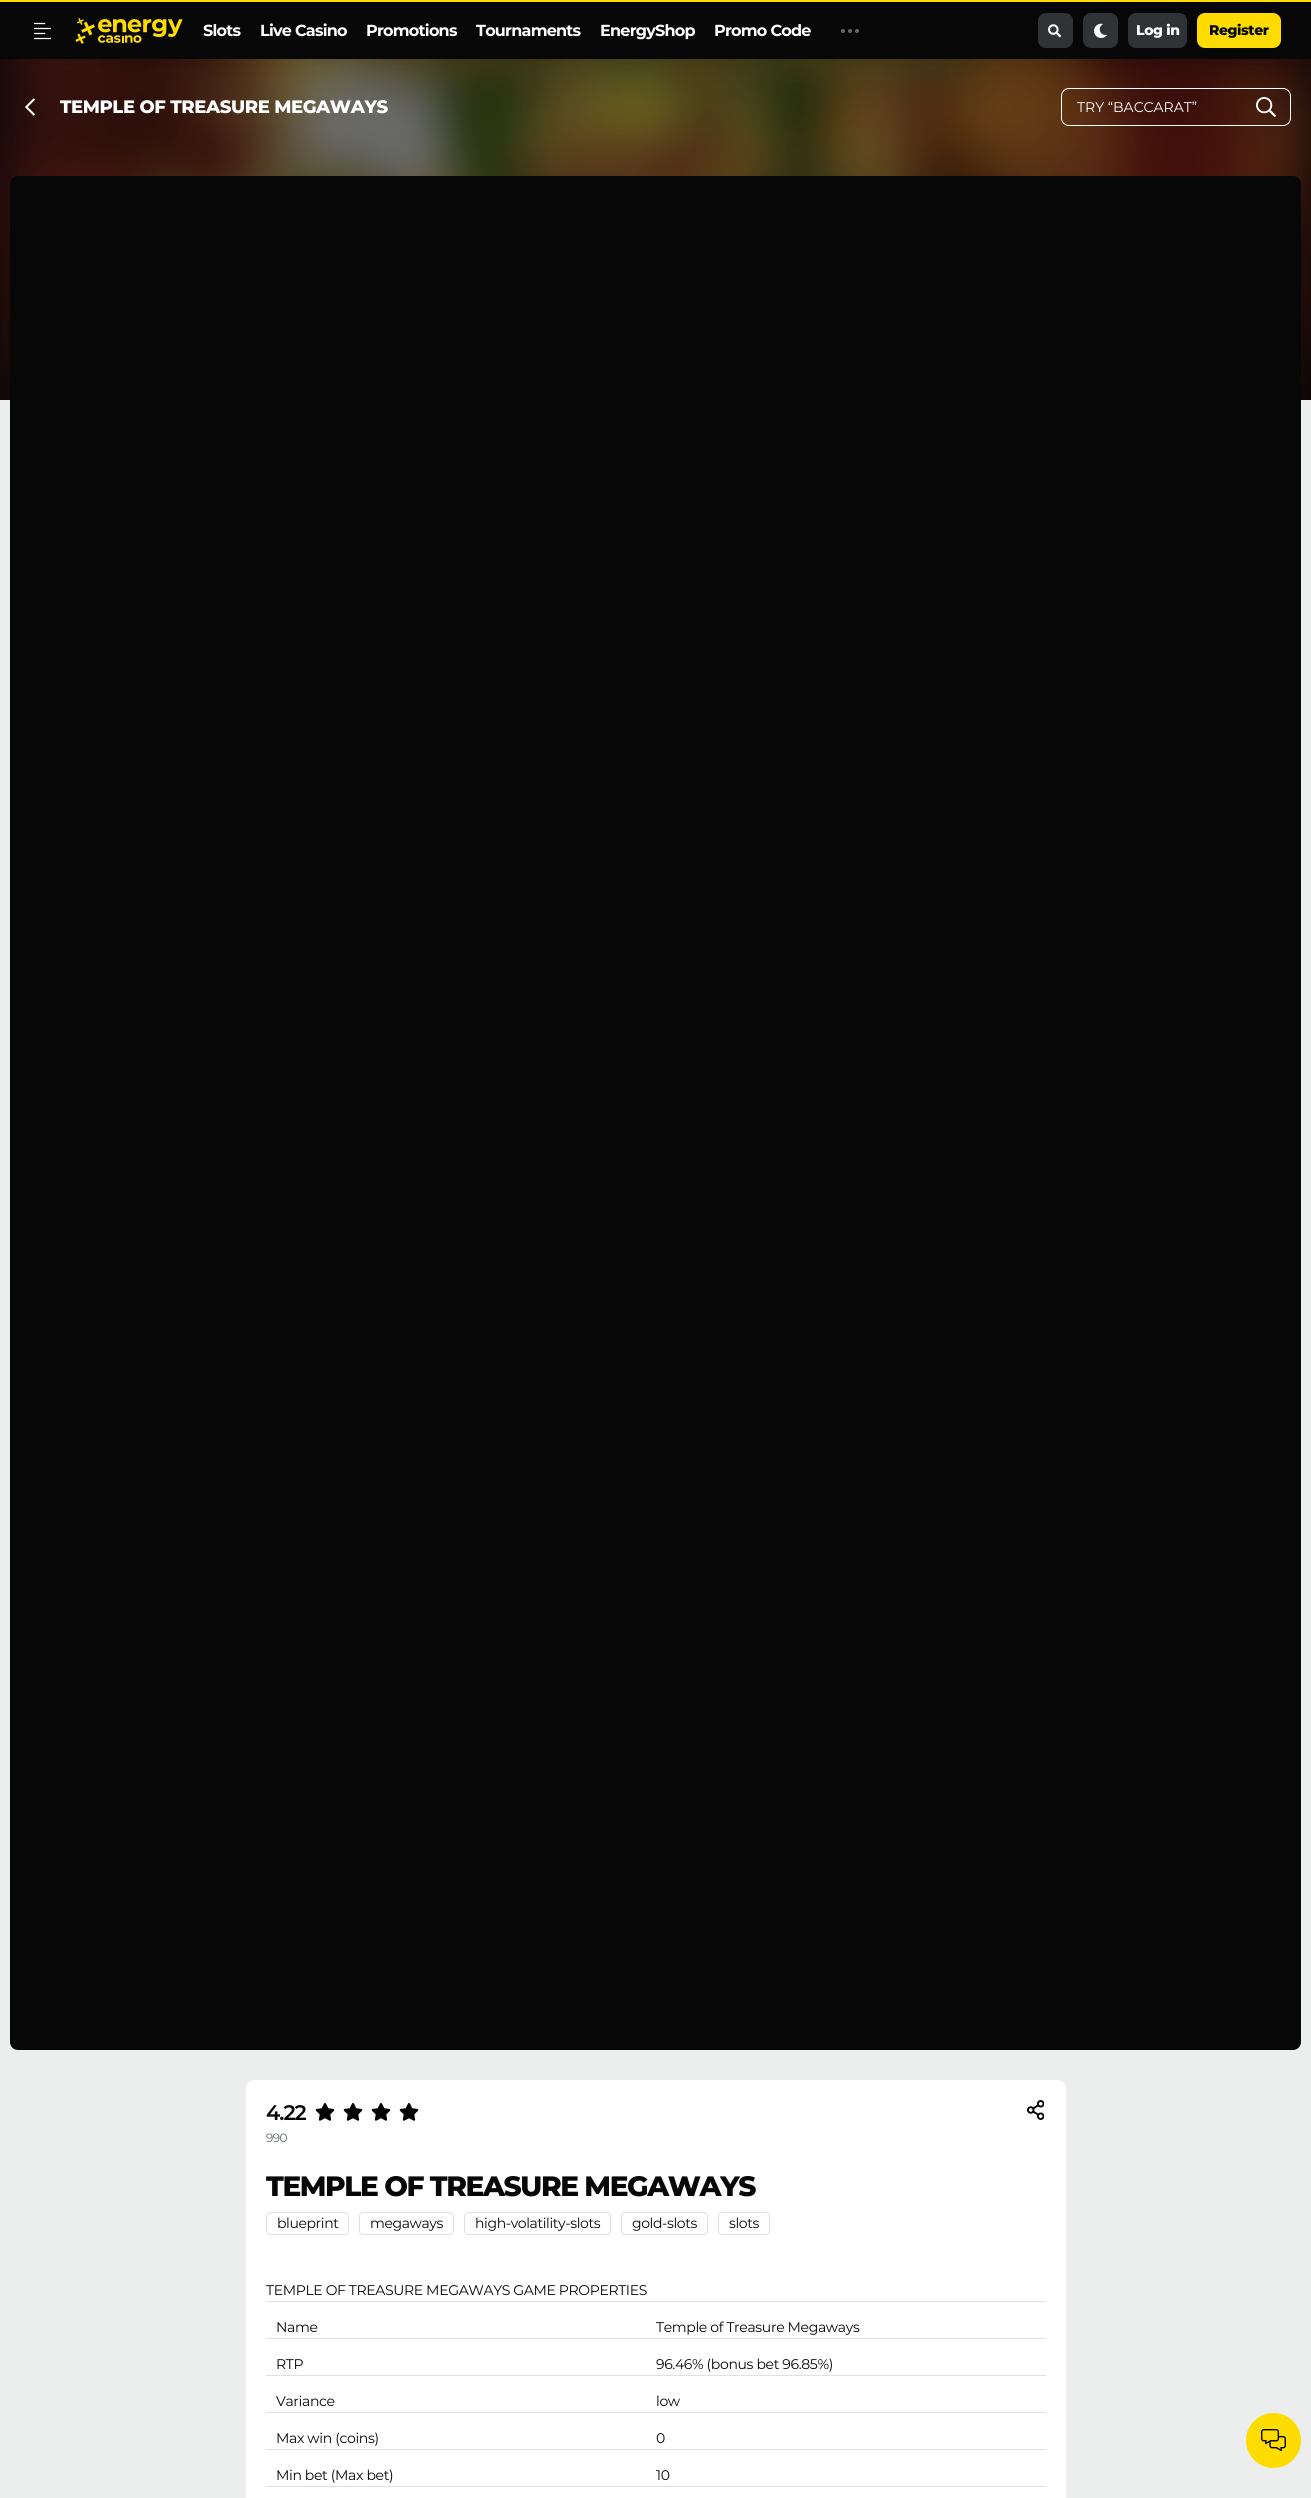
import math
import cairocffi as cairo

surface = cairo.ImageSurface(cairo.FORMAT_RGB24, 1311, 2498)
cr = cairo.Context(surface)
options = cairo.FontOptions()
options.set_hint_metrics(cairo.HINT_METRICS_OFF)
options.set_hint_style(cairo.HINT_STYLE_NONE)
cr.set_font_options(options)
cr.set_miter_limit(4)


def use_color(code):
    cr.set_source_rgb(*(v / 255 for v in bytes.fromhex(code[-6:])))


def spaced_text(x, y, s, letter, word):
    cr.move_to(x, y)
    for ch in s:
        cr.show_text(ch)
        cr.rel_move_to(letter + word * (ch == ' '), 0)


def round_rect(x, y, w, h, r):
    cr.new_sub_path()
    for i, (u, v) in enumerate([(x + w - r, y + h - r), (x + r, y + h - r), (x + r, y + r), (x + w - r, y + r)]):
        cr.arc(u, v, r, i * math.pi / 2, (i + 1) * math.pi / 2)
    cr.close_path()


def shadow(x, y, w, h, r, blur, alpha):
    cr.push_group_with_content(cairo.CONTENT_ALPHA)
    cr.set_operator(cairo.OPERATOR_SOURCE)
    for i in range(15, -16, -2):
        e = blur * i / 6
        if min(w, h) + 2 * e > 0:
            cr.set_source_rgba(0, 0, 0, alpha * math.erfc((i - 1) / 8.5) / 2)
            round_rect(x - e, y - e, w + 2 * e, h + 2 * e, max(0, min(r + e + blur * .6, min(w, h) / 2 + e)))
            cr.fill()
    cr.mask(cr.pop_group())


def picture(path, x, y, w, h):
    cr.save()
    cr.set_source_surface(cairo.ImageSurface.create_from_png(path), x, y)
    cr.rectangle(x, y, w, h)
    cr.fill()
    cr.restore()


use_color("#eceded")
cr.paint()
use_color("#070707")
cr.rectangle(0, 59, 1311, 341)
cr.fill()
picture("img5.png", 0, 59, 1311, 341)
round_rect(1061.5, 88.5, 229, 37, 7.5)
use_color("#ffffff")
cr.set_line_width(1)
cr.stroke()
use_color("#070808")
shadow(0, 2, 1311, 59, 0, 10, 0.1)
use_color("#070707")
cr.rectangle(0, 2, 1311, 57)
cr.fill()
use_color("#ffdc00")
cr.rectangle(0, 0, 1311, 2)
cr.fill()
picture("img1.png", 34, 22, 17, 18)
picture("img2.png", 75, 18, 108, 26)
cr.select_font_face("Montserrat", cairo.FONT_SLANT_NORMAL, cairo.FONT_WEIGHT_BOLD)
cr.set_font_size(16)
use_color("#ffffff")
spaced_text(203, 36, "Slots", -0.75, 0)
spaced_text(260, 36, "Live Casino", -0.75, 0)
spaced_text(366, 36, "Promotions", -0.75, 0)
spaced_text(476, 36, "Tournaments", -0.75, 0)
spaced_text(600, 36, "EnergyShop", -0.75, 0)
spaced_text(714, 36, "Promo Code", -0.75, 0)
use_color("#61666a")
cr.new_path()
cr.arc(843, 31, 2, 0, 2 * math.pi)
cr.fill()
cr.arc(850, 31, 2, 0, 2 * math.pi)
cr.fill()
cr.arc(857, 31, 2, 0, 2 * math.pi)
cr.fill()
use_color("#303335")
round_rect(1039, 14, 33, 33, 7)
cr.fill_preserve()
cr.set_line_width(2)
cr.stroke()
picture("img3.png", 1048, 24, 13, 14)
round_rect(1084, 14, 33, 33, 7)
cr.fill_preserve()
cr.stroke()
picture("img4.png", 1094, 23, 13, 15)
round_rect(1129, 14, 57, 33, 7)
cr.fill_preserve()
cr.stroke()
cr.select_font_face("Montserrat ExtraBold")
cr.set_font_size(14)
use_color("#ffffff")
spaced_text(1136, 35, "Log in", -0.4, 0)
use_color("#ffdc00")
round_rect(1198, 14, 82, 33, 7)
cr.fill_preserve()
cr.stroke()
use_color("#070707")
spaced_text(1209, 35, "Register", -0.4, 0)
picture("img6.png", 25, 98, 10, 18)
cr.set_font_size(18)
use_color("#ffffff")
spaced_text(60, 113, "TEMPLE OF TREASURE MEGAWAYS", -0.4, 0)
cr.select_font_face("Montserrat")
cr.set_font_size(14)
cr.move_to(1077, 112)
cr.show_text("TRY “BACCARAT”")
picture("img7.png", 1256, 97, 20, 20)
use_color("#070707")
round_rect(10, 176, 1291, 1874, 8)
cr.fill()
use_color("#ffffff")
round_rect(246, 2080, 820, 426, 8)
cr.fill()
cr.select_font_face("Montserrat SemiBold")
cr.set_font_size(21)
use_color("#070707")
spaced_text(266, 2120, "4.22", -1, 0)
picture("img8.png", 315, 2103, 20, 18)
picture("img8.png", 343, 2103, 20, 18)
picture("img8.png", 371, 2103, 20, 18)
picture("img8.png", 399, 2103, 20, 18)
cr.select_font_face("Montserrat")
cr.set_font_size(12)
use_color("#61666a")
spaced_text(266, 2142, "990", -0.5, 0)
picture("img9.png", 1027, 2100, 17, 20)
cr.select_font_face("Montserrat ExtraBold")
cr.set_font_size(28)
use_color("#070707")
spaced_text(266, 2196, "TEMPLE OF TREASURE MEGAWAYS", -1.4, 0)
round_rect(266.5, 2212.5, 82, 22, 3.5)
use_color("#dfe0e1")
cr.set_line_width(1)
cr.stroke()
cr.select_font_face("Montserrat")
cr.set_font_size(14)
use_color("#070707")
spaced_text(277, 2228, "blueprint", -0.4, 0)
round_rect(359.5, 2212.5, 94, 22, 3.5)
use_color("#dfe0e1")
cr.stroke()
use_color("#070707")
spaced_text(370, 2228, "megaways", -0.4, 0)
round_rect(464.5, 2212.5, 146, 22, 3.5)
use_color("#dfe0e1")
cr.stroke()
use_color("#070707")
spaced_text(475, 2228, "high-volatility-slots", -0.4, 0)
round_rect(621.5, 2212.5, 86, 22, 3.5)
use_color("#dfe0e1")
cr.stroke()
use_color("#070707")
spaced_text(632, 2228, "gold-slots", -0.4, 0)
round_rect(718.5, 2212.5, 51, 22, 3.5)
use_color("#dfe0e1")
cr.stroke()
use_color("#070707")
spaced_text(729, 2228, "slots", -0.4, 0)
use_color("#dfe0e1")
cr.rectangle(266, 2301, 780, 1)
cr.fill()
use_color("#070707")
spaced_text(266, 2295, "TEMPLE OF TREASURE MEGAWAYS GAME PROPERTIES", -0.35, 0)
use_color("#dfe0e1")
cr.rectangle(266, 2338, 780, 1)
cr.fill()
use_color("#070707")
spaced_text(276, 2332, "Name", -0.35, 0)
spaced_text(656, 2332, "Temple of Treasure Megaways", -0.35, 0)
use_color("#dfe0e1")
cr.rectangle(266, 2375, 780, 1)
cr.fill()
use_color("#070707")
spaced_text(276, 2369, "RTP", -0.35, 0)
spaced_text(656, 2369, "96.46% (bonus bet 96.85%)", -0.35, 0)
use_color("#dfe0e1")
cr.rectangle(266, 2412, 780, 1)
cr.fill()
use_color("#070707")
spaced_text(276, 2406, "Variance", -0.35, 0)
spaced_text(656, 2406, "low", -0.35, 0)
use_color("#dfe0e1")
cr.rectangle(266, 2449, 780, 1)
cr.fill()
use_color("#070707")
spaced_text(276, 2443, "Max win (coins)", -0.35, 0)
spaced_text(656, 2443, "0", -0.35, 0)
use_color("#dfe0e1")
cr.rectangle(266, 2486, 780, 1)
cr.fill()
use_color("#070707")
spaced_text(276, 2480, "Min bet (Max bet)", -0.35, 0)
spaced_text(656, 2480, "10", -0.35, 0)
use_color("#ffdc00")
cr.new_path()
cr.arc(1273.5, 2440.5, 27.5, 0, 2 * math.pi)
cr.fill()
picture("img10.png", 1261, 2429, 25, 23)
surface.write_to_png("result.png")
